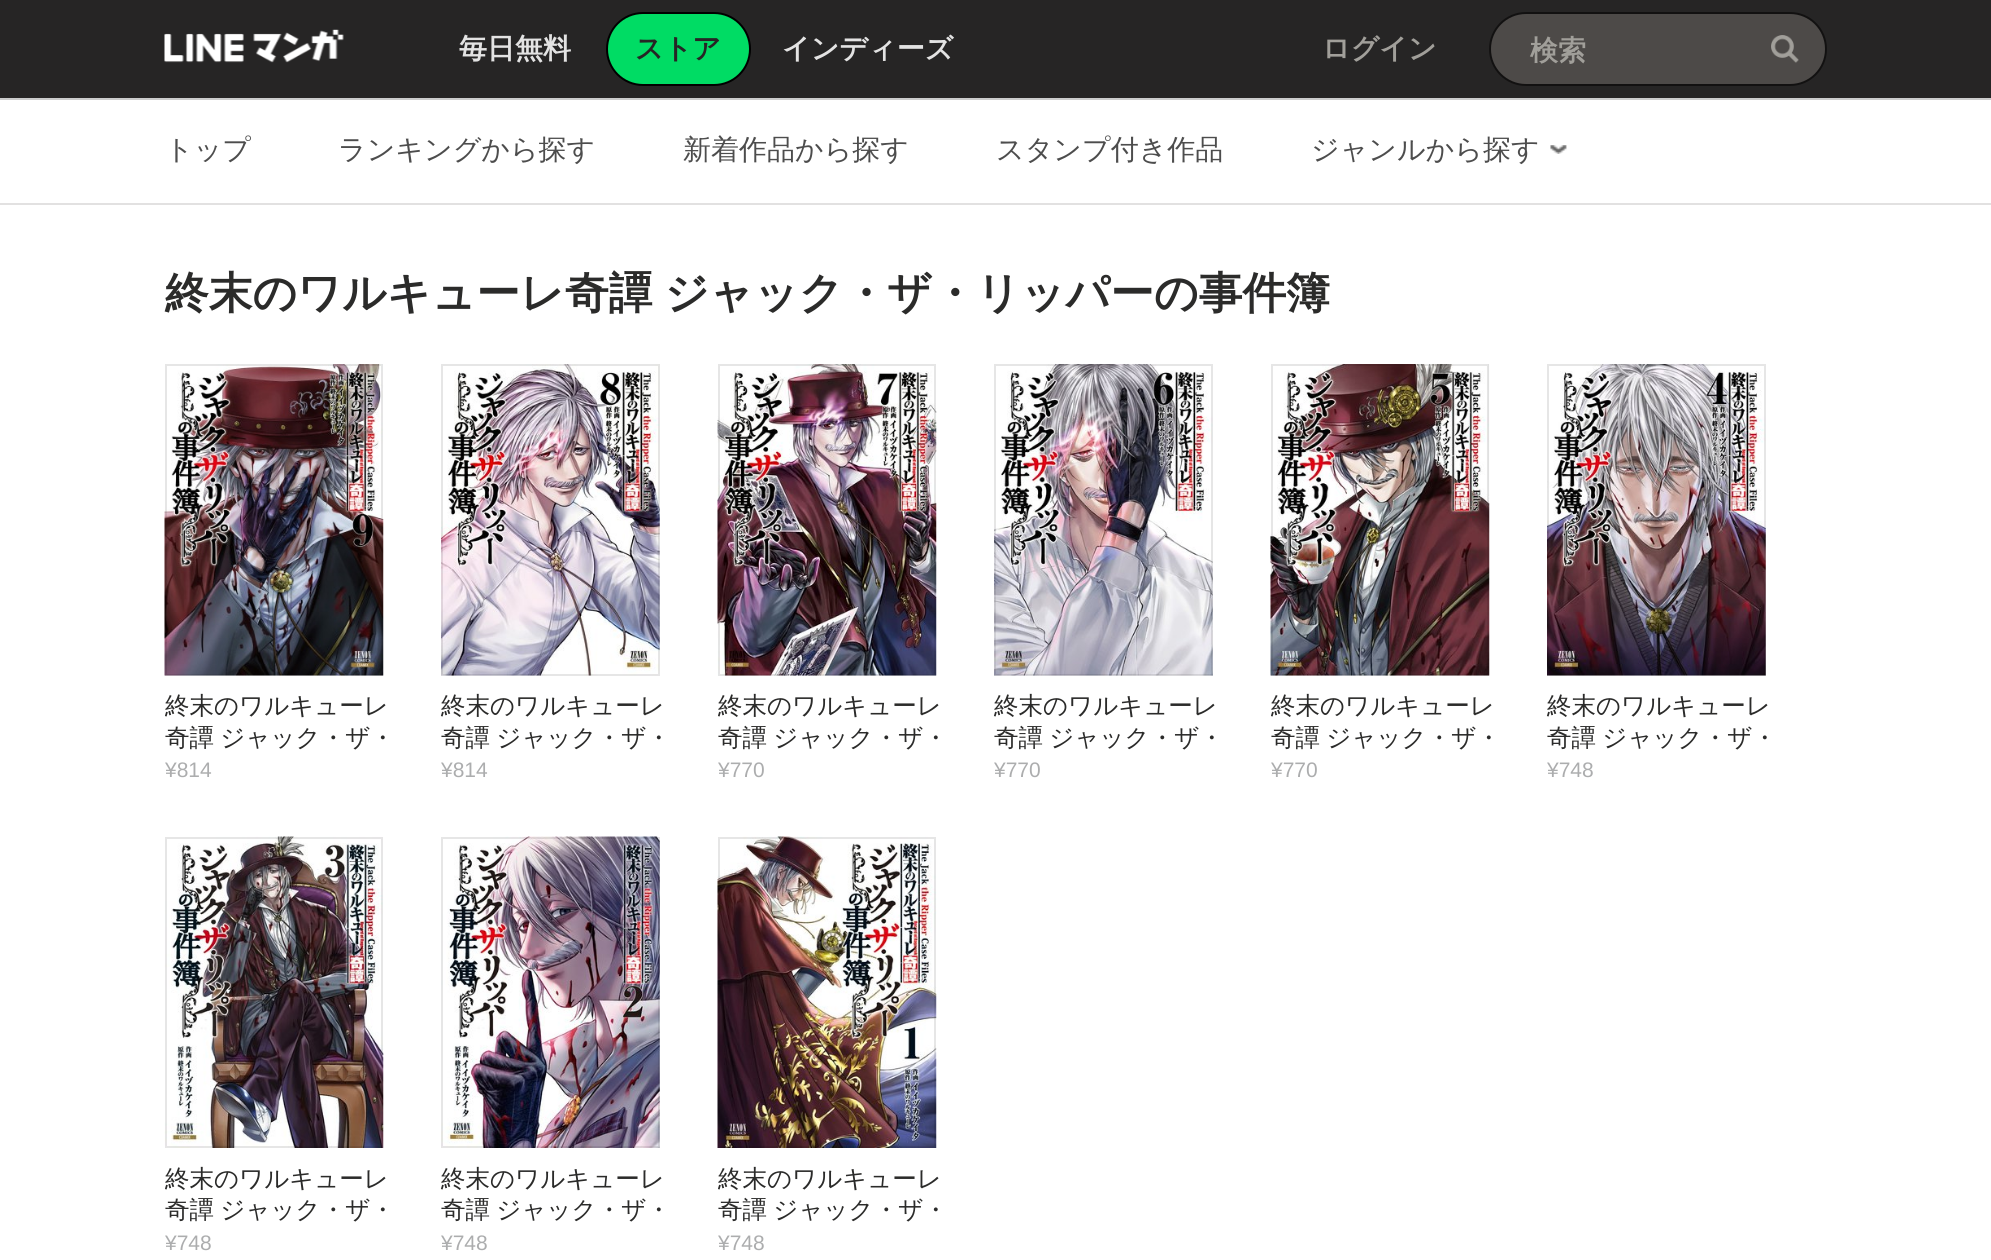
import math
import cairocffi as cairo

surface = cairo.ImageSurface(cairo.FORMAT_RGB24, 1991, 1260)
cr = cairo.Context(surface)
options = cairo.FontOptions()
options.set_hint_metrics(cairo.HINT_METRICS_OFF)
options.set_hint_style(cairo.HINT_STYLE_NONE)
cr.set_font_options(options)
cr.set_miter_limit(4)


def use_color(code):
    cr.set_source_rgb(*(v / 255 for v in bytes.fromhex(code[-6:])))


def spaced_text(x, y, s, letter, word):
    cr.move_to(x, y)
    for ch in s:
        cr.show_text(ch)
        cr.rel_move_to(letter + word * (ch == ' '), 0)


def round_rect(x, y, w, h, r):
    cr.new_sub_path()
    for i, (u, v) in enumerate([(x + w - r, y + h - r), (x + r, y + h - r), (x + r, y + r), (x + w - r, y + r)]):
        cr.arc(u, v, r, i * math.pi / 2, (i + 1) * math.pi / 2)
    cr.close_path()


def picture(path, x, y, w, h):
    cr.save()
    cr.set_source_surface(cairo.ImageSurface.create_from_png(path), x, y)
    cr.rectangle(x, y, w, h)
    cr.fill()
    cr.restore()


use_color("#ffffff")
cr.paint()
use_color("#262525")
cr.rectangle(0, 0, 1991, 98)
cr.fill()
picture("img1.png", 164, 29, 180, 34)
cr.select_font_face("WenQuanYi Zen Hei", cairo.FONT_SLANT_NORMAL, cairo.FONT_WEIGHT_BOLD)
cr.set_font_size(28)
use_color("#e3e3e3")
cr.move_to(459, 58)
cr.show_text("毎日無料")
use_color("#00dc64")
round_rect(607, 13, 143, 72, 36)
cr.fill_preserve()
use_color("#000000")
cr.stroke()
use_color("#262525")
cr.move_to(635, 58)
cr.show_text("ストア")
use_color("#e3e3e3")
cr.move_to(782, 58)
cr.show_text("インディーズ")
use_color("#a19f9a")
cr.move_to(1322, 58)
cr.show_text("ログイン")
use_color("#4d4a48")
round_rect(1490, 13, 336, 72, 36)
cr.fill_preserve()
use_color("#121111")
cr.stroke()
use_color("#a19f9a")
cr.move_to(1530, 60)
cr.show_text("検索")
picture("img2.png", 1771, 35, 28, 28)
use_color("#cccccc")
cr.rectangle(0, 98, 1991, 2)
cr.fill()
cr.select_font_face("WenQuanYi Zen Hei Medium")
use_color("#4d4d4d")
cr.move_to(165, 159)
cr.show_text("トップ")
cr.move_to(338, 159)
cr.show_text("ランキングから探す")
cr.move_to(683, 159)
cr.show_text("新着作品から探す")
cr.move_to(996, 159)
cr.show_text("スタンプ付き作品")
cr.move_to(1311, 159)
cr.show_text("ジャンルから探す")
picture("img3.png", 1550, 145, 17, 9)
use_color("#e2e1e1")
cr.rectangle(0, 203, 1991, 2)
cr.fill()
cr.select_font_face("WenQuanYi Zen Hei", cairo.FONT_SLANT_NORMAL, cairo.FONT_WEIGHT_BOLD)
cr.set_font_size(43.75)
use_color("#2b2b2a")
spaced_text(165, 308, "終末のワルキューレ奇譚 ジャック・ザ・リッパーの事件簿", 0, -1)
picture("img4.png", 164, 364, 220, 312)
cr.rectangle(166, 365, 216, 310)
cr.set_source_rgba(0, 0, 0, 0.1)
cr.stroke()
cr.save()
cr.rectangle(165, 676, 245, 77)
cr.clip()
cr.select_font_face("WenQuanYi Zen Hei Medium")
cr.set_font_size(24.5)
use_color("#2b2b2a")
cr.move_to(165, 714)
cr.show_text("終末のワルキューレ")
cr.restore()
cr.select_font_face("WenQuanYi Zen Hei Medium")
cr.set_font_size(24.5)
use_color("#2b2b2a")
spaced_text(165, 746, "奇譚 ジャック・ザ・", 0, -1)
cr.select_font_face("Liberation Sans")
cr.set_font_size(21)
use_color("#acadae")
cr.move_to(165, 777)
cr.show_text("¥814")
picture("img5.png", 441, 364, 219, 312)
cr.rectangle(442, 365, 217, 310)
cr.set_source_rgba(0, 0, 0, 0.1)
cr.stroke()
cr.select_font_face("WenQuanYi Zen Hei Medium")
cr.set_font_size(24.5)
use_color("#2b2b2a")
cr.move_to(441, 714)
cr.show_text("終末のワルキューレ")
spaced_text(441, 746, "奇譚 ジャック・ザ・", 0, -1)
cr.select_font_face("Liberation Sans")
cr.set_font_size(21)
use_color("#acadae")
cr.move_to(441, 777)
cr.show_text("¥814")
picture("img6.png", 717, 364, 220, 312)
cr.rectangle(719, 365, 216, 310)
cr.set_source_rgba(0, 0, 0, 0.1)
cr.stroke()
cr.save()
cr.rectangle(718, 676, 245, 77)
cr.clip()
cr.select_font_face("WenQuanYi Zen Hei Medium")
cr.set_font_size(24.5)
use_color("#2b2b2a")
cr.move_to(718, 714)
cr.show_text("終末のワルキューレ")
cr.restore()
cr.select_font_face("WenQuanYi Zen Hei Medium")
cr.set_font_size(24.5)
use_color("#2b2b2a")
spaced_text(718, 746, "奇譚 ジャック・ザ・", 0, -1)
cr.select_font_face("Liberation Sans")
cr.set_font_size(21)
use_color("#acadae")
cr.move_to(718, 777)
cr.show_text("¥770")
picture("img7.png", 994, 364, 219, 312)
cr.rectangle(995, 365, 217, 310)
cr.set_source_rgba(0, 0, 0, 0.1)
cr.stroke()
cr.select_font_face("WenQuanYi Zen Hei Medium")
cr.set_font_size(24.5)
use_color("#2b2b2a")
cr.move_to(994, 714)
cr.show_text("終末のワルキューレ")
spaced_text(994, 746, "奇譚 ジャック・ザ・", 0, -1)
cr.select_font_face("Liberation Sans")
cr.set_font_size(21)
use_color("#acadae")
cr.move_to(994, 777)
cr.show_text("¥770")
picture("img8.png", 1270, 364, 220, 312)
cr.rectangle(1272, 365, 216, 310)
cr.set_source_rgba(0, 0, 0, 0.1)
cr.stroke()
cr.save()
cr.rectangle(1271, 676, 245, 77)
cr.clip()
cr.select_font_face("WenQuanYi Zen Hei Medium")
cr.set_font_size(24.5)
use_color("#2b2b2a")
cr.move_to(1271, 714)
cr.show_text("終末のワルキューレ")
cr.restore()
cr.select_font_face("WenQuanYi Zen Hei Medium")
cr.set_font_size(24.5)
use_color("#2b2b2a")
spaced_text(1271, 746, "奇譚 ジャック・ザ・", 0, -1)
cr.select_font_face("Liberation Sans")
cr.set_font_size(21)
use_color("#acadae")
cr.move_to(1271, 777)
cr.show_text("¥770")
picture("img9.png", 1547, 364, 219, 312)
cr.rectangle(1548, 365, 217, 310)
cr.set_source_rgba(0, 0, 0, 0.1)
cr.stroke()
cr.select_font_face("WenQuanYi Zen Hei Medium")
cr.set_font_size(24.5)
use_color("#2b2b2a")
cr.move_to(1547, 714)
cr.show_text("終末のワルキューレ")
spaced_text(1547, 746, "奇譚 ジャック・ザ・", 0, -1)
cr.select_font_face("Liberation Sans")
cr.set_font_size(21)
use_color("#acadae")
cr.move_to(1547, 777)
cr.show_text("¥748")
picture("img10.png", 164, 836, 220, 312)
cr.rectangle(166, 838, 216, 309)
cr.set_source_rgba(0, 0, 0, 0.1)
cr.stroke()
cr.save()
cr.rectangle(165, 1148, 245, 77)
cr.clip()
cr.select_font_face("WenQuanYi Zen Hei Medium")
cr.set_font_size(24.5)
use_color("#2b2b2a")
cr.move_to(165, 1187)
cr.show_text("終末のワルキューレ")
cr.restore()
cr.select_font_face("WenQuanYi Zen Hei Medium")
cr.set_font_size(24.5)
use_color("#2b2b2a")
spaced_text(165, 1218, "奇譚 ジャック・ザ・", 0, -1)
cr.select_font_face("Liberation Sans")
cr.set_font_size(21)
use_color("#acadae")
cr.move_to(165, 1250)
cr.show_text("¥748")
picture("img11.png", 441, 836, 219, 312)
cr.rectangle(442, 838, 217, 309)
cr.set_source_rgba(0, 0, 0, 0.1)
cr.stroke()
cr.select_font_face("WenQuanYi Zen Hei Medium")
cr.set_font_size(24.5)
use_color("#2b2b2a")
cr.move_to(441, 1187)
cr.show_text("終末のワルキューレ")
spaced_text(441, 1218, "奇譚 ジャック・ザ・", 0, -1)
cr.select_font_face("Liberation Sans")
cr.set_font_size(21)
use_color("#acadae")
cr.move_to(441, 1250)
cr.show_text("¥748")
picture("img12.png", 717, 836, 220, 312)
cr.rectangle(719, 838, 216, 309)
cr.set_source_rgba(0, 0, 0, 0.1)
cr.stroke()
cr.save()
cr.rectangle(718, 1148, 245, 77)
cr.clip()
cr.select_font_face("WenQuanYi Zen Hei Medium")
cr.set_font_size(24.5)
use_color("#2b2b2a")
cr.move_to(718, 1187)
cr.show_text("終末のワルキューレ")
cr.restore()
cr.select_font_face("WenQuanYi Zen Hei Medium")
cr.set_font_size(24.5)
use_color("#2b2b2a")
spaced_text(718, 1218, "奇譚 ジャック・ザ・", 0, -1)
cr.select_font_face("Liberation Sans")
cr.set_font_size(21)
use_color("#acadae")
cr.move_to(718, 1250)
cr.show_text("¥748")
surface.write_to_png("result.png")
